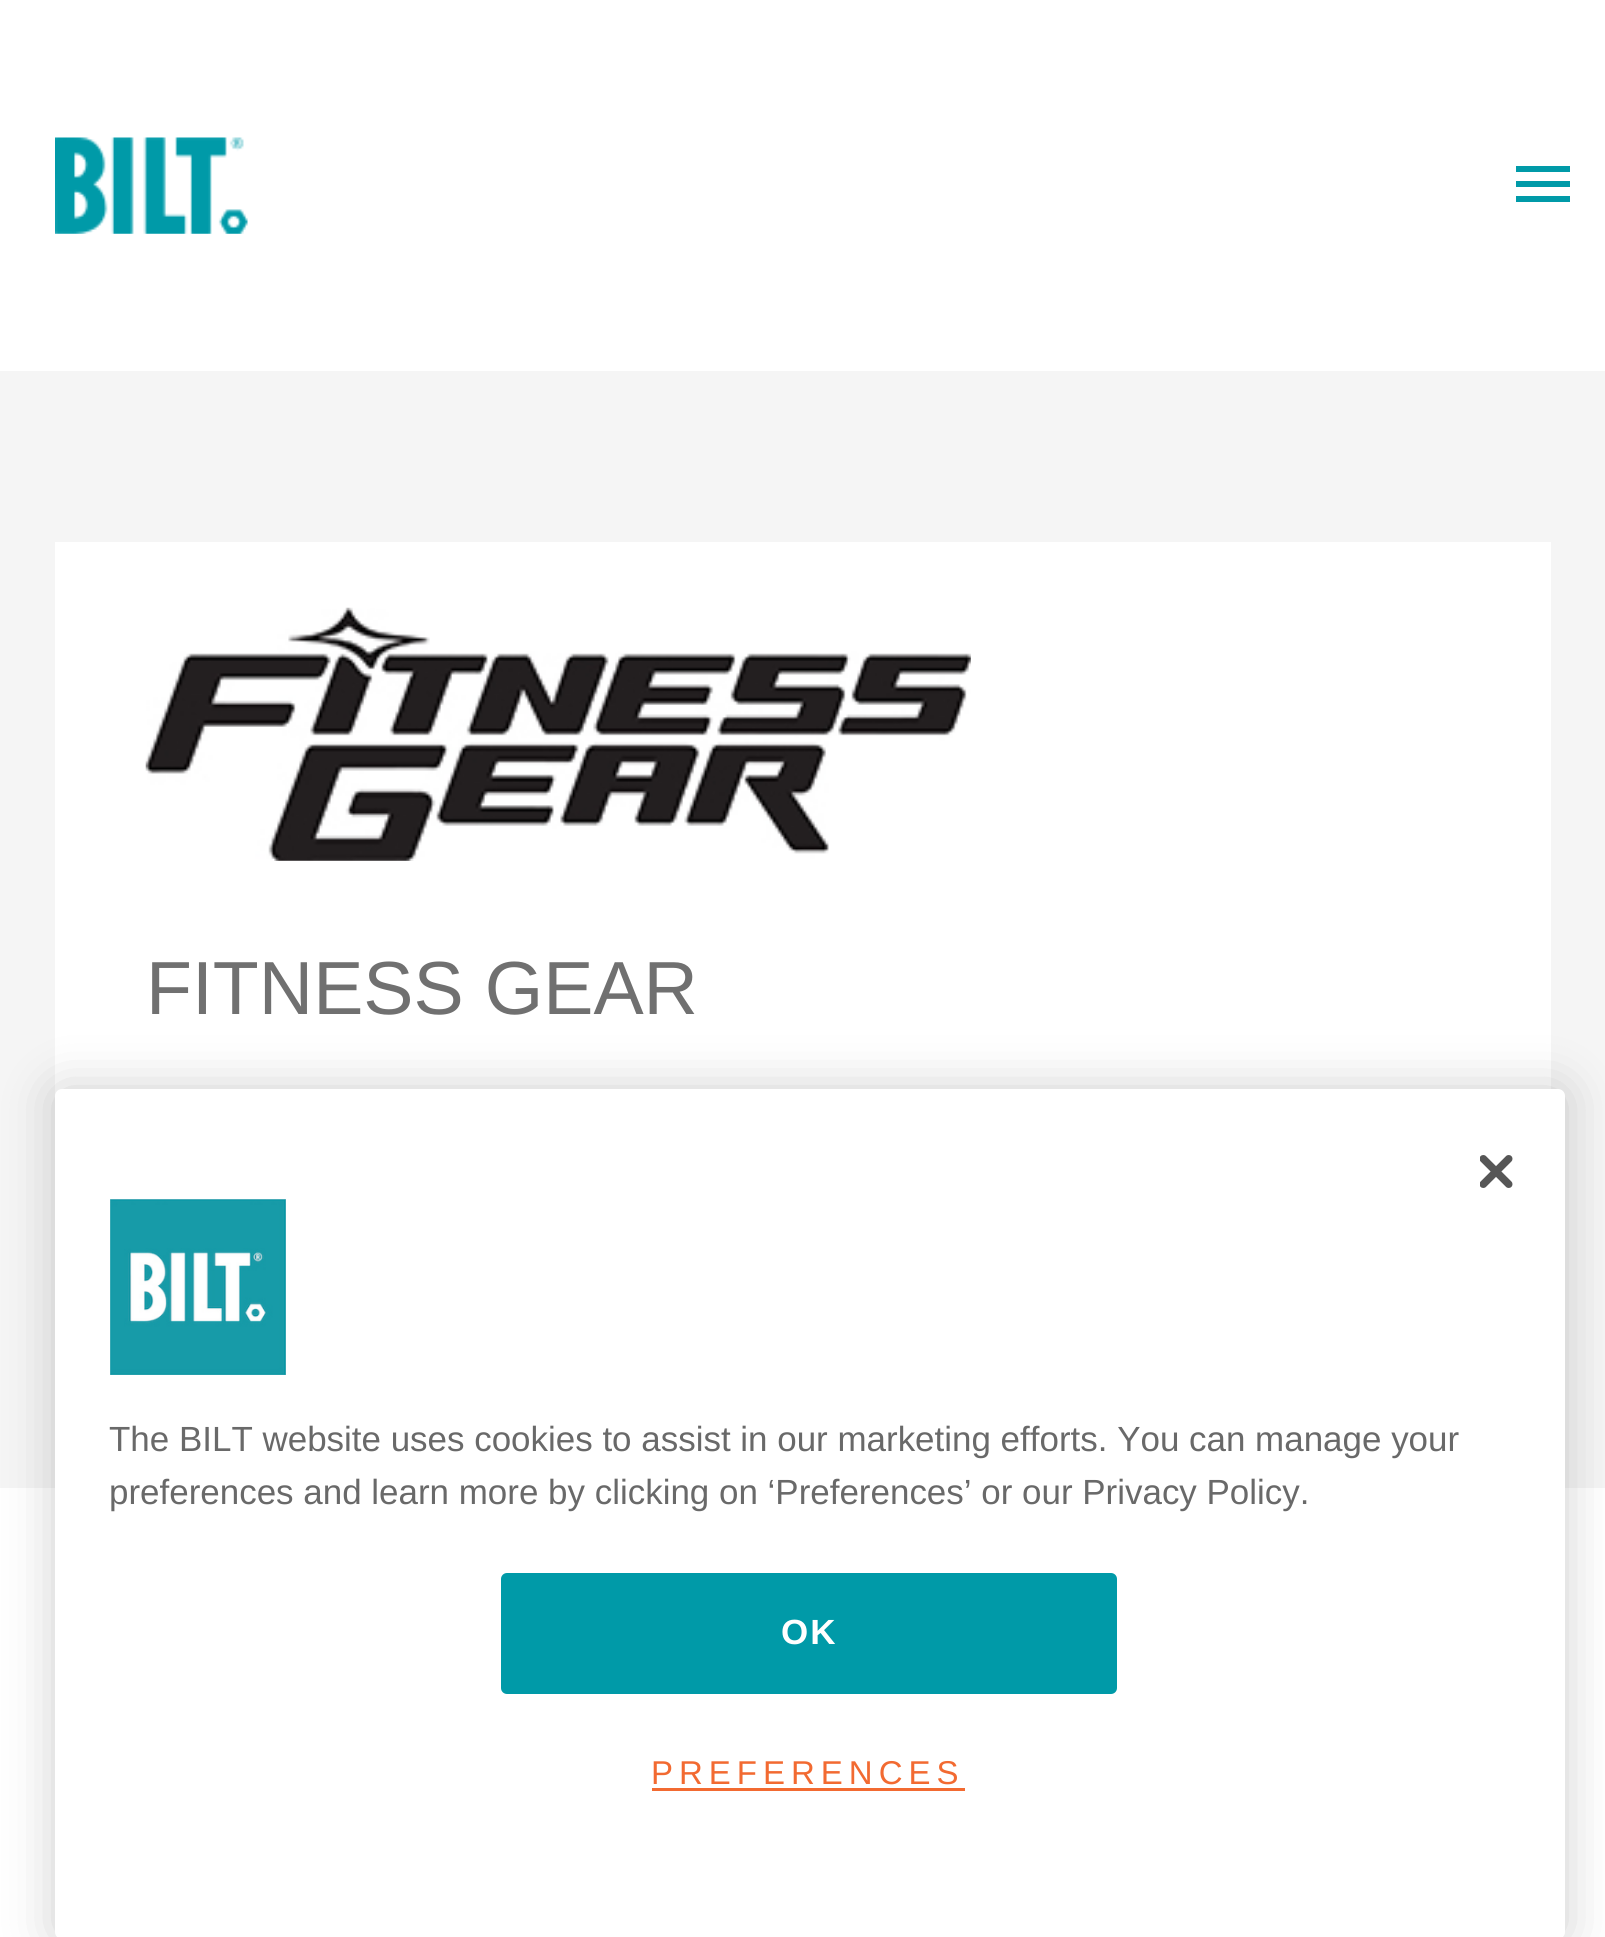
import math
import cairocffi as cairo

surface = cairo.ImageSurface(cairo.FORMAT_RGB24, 1605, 1937)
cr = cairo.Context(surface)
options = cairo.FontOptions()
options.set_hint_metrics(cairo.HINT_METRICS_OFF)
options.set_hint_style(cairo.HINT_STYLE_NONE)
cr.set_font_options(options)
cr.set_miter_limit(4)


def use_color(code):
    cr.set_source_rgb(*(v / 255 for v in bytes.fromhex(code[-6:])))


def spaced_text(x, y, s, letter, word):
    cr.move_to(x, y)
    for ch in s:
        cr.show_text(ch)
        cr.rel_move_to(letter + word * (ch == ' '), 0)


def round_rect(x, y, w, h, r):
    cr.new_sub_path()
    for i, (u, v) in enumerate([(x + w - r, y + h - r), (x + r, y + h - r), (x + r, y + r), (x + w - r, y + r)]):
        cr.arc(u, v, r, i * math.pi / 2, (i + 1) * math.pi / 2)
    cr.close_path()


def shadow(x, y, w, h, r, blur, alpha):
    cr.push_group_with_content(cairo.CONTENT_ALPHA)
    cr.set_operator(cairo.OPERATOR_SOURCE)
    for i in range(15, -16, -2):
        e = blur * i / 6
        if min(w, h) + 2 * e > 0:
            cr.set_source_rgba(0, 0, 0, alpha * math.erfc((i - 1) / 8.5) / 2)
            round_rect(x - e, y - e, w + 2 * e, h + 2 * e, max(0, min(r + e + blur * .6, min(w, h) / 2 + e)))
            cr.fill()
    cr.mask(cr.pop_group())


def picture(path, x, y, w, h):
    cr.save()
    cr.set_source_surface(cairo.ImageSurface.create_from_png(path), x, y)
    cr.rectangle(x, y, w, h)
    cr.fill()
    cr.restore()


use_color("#f5f5f5")
cr.paint()
use_color("#ffffff")
cr.rectangle(0, 0, 1605, 371)
cr.fill()
picture("img1.png", 55, 137, 193, 97)
use_color("#009aa8")
cr.new_path()
cr.move_to(1516, 166)
cr.line_to(1570, 166)
cr.line_to(1570, 172)
cr.line_to(1516, 172)
cr.close_path()
cr.move_to(1516, 187)
cr.line_to(1516, 181)
cr.line_to(1570, 181)
cr.line_to(1570, 187)
cr.close_path()
cr.move_to(1516, 202)
cr.line_to(1516, 196)
cr.line_to(1570, 196)
cr.line_to(1570, 202)
cr.close_path()
cr.fill()
use_color("#ffffff")
cr.rectangle(55, 542, 1496, 554)
cr.fill()
picture("img2.png", 145, 607, 826, 254)
cr.select_font_face("Liberation Sans")
cr.set_font_size(75.25)
use_color("#707070")
cr.move_to(146, 1014)
cr.show_text("FITNESS GEAR")
use_color("#ffffff")
cr.rectangle(0, 1488, 1605, 449)
cr.fill()
use_color("#000000")
shadow(55, 1089, 1510, 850, 7, 25, 0.2)
use_color("#ffffff")
round_rect(55, 1089, 1510, 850, 7)
cr.fill()
picture("img3.png", 1480, 1155, 33, 33)
picture("img4.png", 110, 1199, 176, 176)
cr.set_font_size(34.95)
use_color("#696969")
cr.move_to(109, 1451)
cr.show_text("The BILT website uses cookies to assist in our marketing efforts. You can manage your")
cr.move_to(109, 1504)
cr.show_text("preferences and learn more by clicking on ‘Preferences’ or our Privacy Policy.")
use_color("#009aa8")
round_rect(502.5, 1574.5, 613, 118, 4.5)
cr.fill_preserve()
cr.set_line_width(3)
cr.stroke()
cr.select_font_face("Liberation Sans", cairo.FONT_SLANT_NORMAL, cairo.FONT_WEIGHT_BOLD)
use_color("#ffffff")
spaced_text(781, 1644, "OK", 2, 0)
cr.select_font_face("Liberation Sans")
cr.set_font_size(33)
use_color("#f26a31")
spaced_text(651, 1784, "PREFERENCES", 6, 0)
cr.rectangle(652, 1788, 313, 3)
cr.fill()
surface.write_to_png("result.png")
